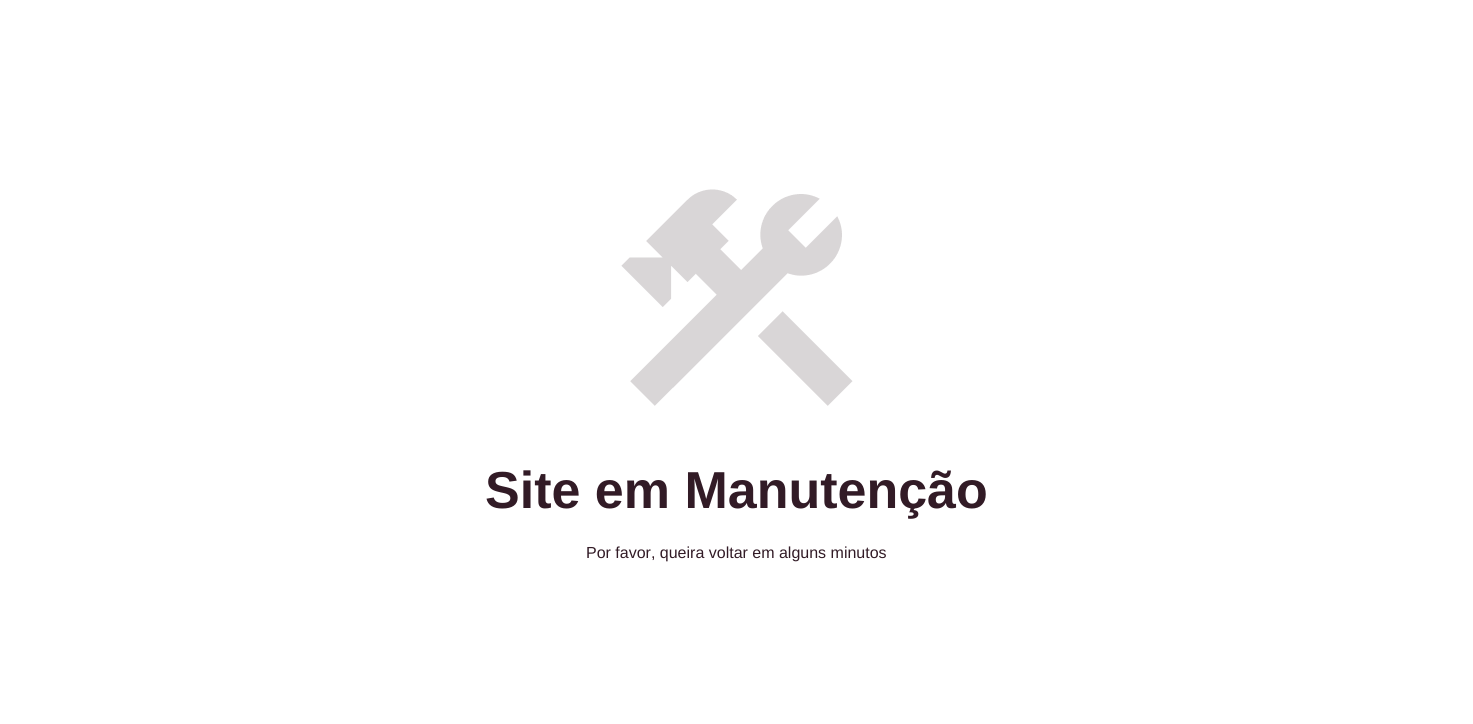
import math
import cairocffi as cairo

surface = cairo.ImageSurface(cairo.FORMAT_RGB24, 1473, 724)
cr = cairo.Context(surface)
options = cairo.FontOptions()
options.set_hint_metrics(cairo.HINT_METRICS_OFF)
options.set_hint_style(cairo.HINT_STYLE_NONE)
cr.set_font_options(options)
cr.set_miter_limit(4)


def use_color(code):
    cr.set_source_rgb(*(v / 255 for v in bytes.fromhex(code[-6:])))


def picture(path, x, y, w, h):
    cr.save()
    cr.set_source_surface(cairo.ImageSurface.create_from_png(path), x, y)
    cr.rectangle(x, y, w, h)
    cr.fill()
    cr.restore()


use_color("#ffffff")
cr.paint()
picture("img1.png", 621, 189, 232, 217)
cr.select_font_face("Liberation Sans", cairo.FONT_SLANT_NORMAL, cairo.FONT_WEIGHT_BOLD)
cr.set_font_size(52)
use_color("#321b26")
cr.move_to(485, 508)
cr.show_text("Site em Manutenção")
cr.select_font_face("Liberation Sans")
cr.set_font_size(16)
cr.move_to(586, 558)
cr.show_text("Por favor, queira voltar em alguns minutos")
surface.write_to_png("result.png")
